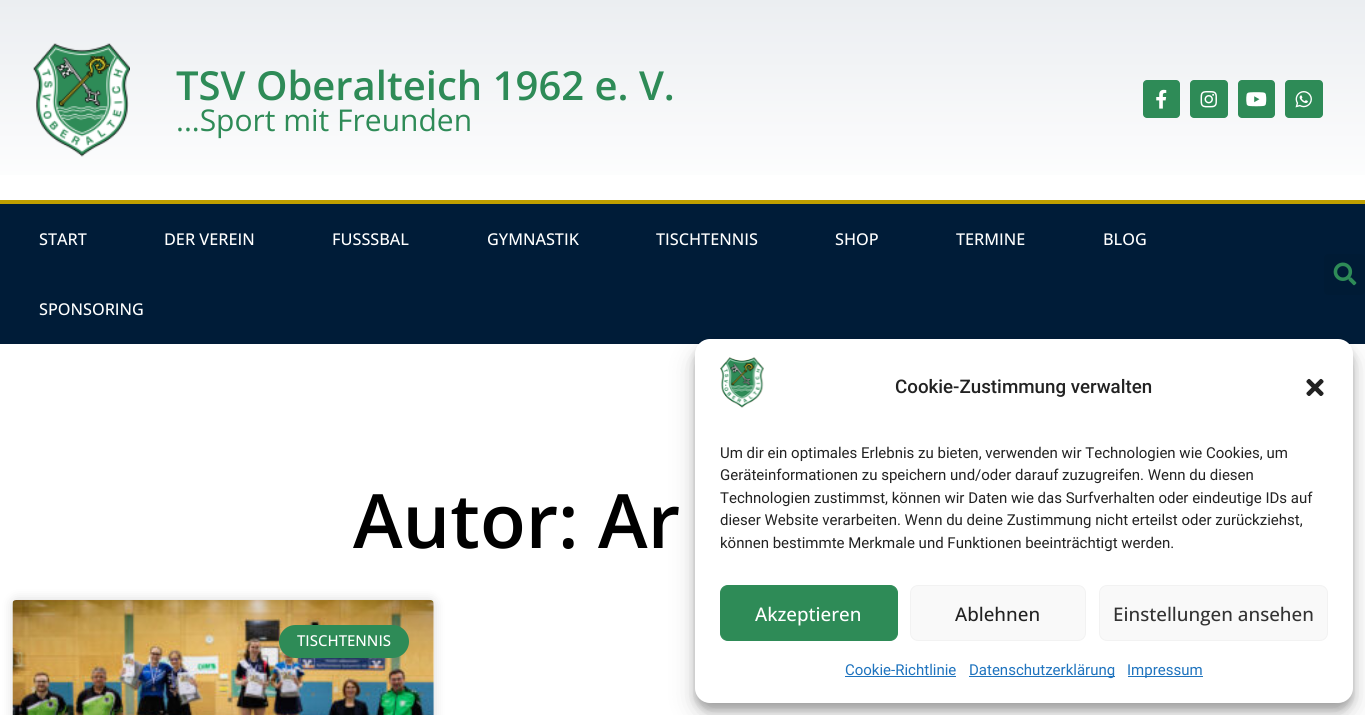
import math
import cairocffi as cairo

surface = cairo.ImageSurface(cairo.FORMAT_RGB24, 1365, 715)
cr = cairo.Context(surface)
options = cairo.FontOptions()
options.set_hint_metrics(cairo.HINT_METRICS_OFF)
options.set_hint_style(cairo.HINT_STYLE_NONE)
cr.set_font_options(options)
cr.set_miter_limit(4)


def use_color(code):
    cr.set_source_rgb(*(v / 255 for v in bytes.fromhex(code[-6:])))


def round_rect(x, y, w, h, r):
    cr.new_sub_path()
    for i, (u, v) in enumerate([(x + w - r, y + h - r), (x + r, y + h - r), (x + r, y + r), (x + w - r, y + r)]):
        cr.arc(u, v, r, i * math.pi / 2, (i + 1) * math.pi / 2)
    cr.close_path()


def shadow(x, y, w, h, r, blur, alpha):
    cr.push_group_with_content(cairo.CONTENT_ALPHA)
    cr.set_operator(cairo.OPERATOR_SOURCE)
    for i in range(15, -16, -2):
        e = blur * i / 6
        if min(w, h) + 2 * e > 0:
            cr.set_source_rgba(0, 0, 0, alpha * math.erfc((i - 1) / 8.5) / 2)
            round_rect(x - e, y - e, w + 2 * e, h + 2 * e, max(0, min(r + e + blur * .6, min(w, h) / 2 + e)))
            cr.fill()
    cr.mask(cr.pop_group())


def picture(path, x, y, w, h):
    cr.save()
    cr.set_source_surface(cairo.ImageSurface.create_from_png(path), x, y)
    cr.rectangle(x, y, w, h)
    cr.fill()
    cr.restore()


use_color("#ffffff")
cr.paint()
gradient = cairo.LinearGradient(683, 0, 683, 200)
gradient.add_color_stop_rgba(0, 0.922, 0.933, 0.945, 1)
gradient.add_color_stop_rgba(1, 1, 1, 1, 1)
cr.set_source(gradient)
cr.rectangle(0, 0, 1365, 175)
cr.fill()
picture("img1.png", 33, 43, 97, 114)
cr.select_font_face("Open Sans SemiBold")
cr.set_font_size(40)
use_color("#2e8b57")
cr.move_to(176, 100)
cr.show_text("TSV Oberalteich 1962 e. V.")
cr.select_font_face("Open Sans")
cr.set_font_size(30)
cr.move_to(176, 131)
cr.show_text("...Sport mit Freunden")
round_rect(1143, 80, 37, 38, 4)
cr.fill()
picture("img2.png", 1156, 89, 11, 20)
round_rect(1190, 80, 38, 38, 4)
cr.fill()
picture("img3.png", 1200, 91, 17, 17)
round_rect(1238, 80, 37, 38, 4)
cr.fill()
picture("img4.png", 1246, 92, 21, 15)
round_rect(1285, 80, 38, 38, 4)
cr.fill()
picture("img5.png", 1295, 91, 17, 17)
use_color("#001c38")
cr.rectangle(0, 204, 1365, 140)
cr.fill()
use_color("#bf9f00")
cr.rectangle(0, 200, 1365, 4)
cr.fill()
cr.select_font_face("Open Sans Medium")
cr.set_font_size(16.25)
use_color("#ffffff")
cr.move_to(39, 245)
cr.show_text("START")
cr.move_to(164, 245)
cr.show_text("DER VEREIN")
cr.move_to(332, 245)
cr.show_text("FUSSSBAL")
cr.move_to(487, 245)
cr.show_text("GYMNASTIK")
cr.move_to(656, 245)
cr.show_text("TISCHTENNIS")
cr.move_to(835, 245)
cr.show_text("SHOP")
cr.move_to(956, 245)
cr.show_text("TERMINE")
cr.move_to(1103, 245)
cr.show_text("BLOG")
cr.move_to(39, 315)
cr.show_text("SPONSORING")
use_color("#001b35")
round_rect(1324, 254, 41, 41, 4)
cr.fill()
picture("img6.png", 1333, 262, 24, 24)
cr.select_font_face("Open Sans SemiBold")
cr.set_font_size(75)
use_color("#000000")
cr.move_to(353, 548)
cr.show_text("Autor: Ar")
use_color("#000000")
shadow(13, 600, 421, 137, 4, 6, 0.15)
use_color("#ffffff")
round_rect(13, 600, 421, 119, 4)
cr.fill()
picture("img7.png", 12, 600, 422, 115)
gradient = cairo.LinearGradient(223, 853, 223, 600)
gradient.add_color_stop_rgba(0, 0, 0, 0, 0.35)
gradient.add_color_stop_rgba(0.75, 0, 0, 0, 0)
cr.set_source(gradient)
cr.rectangle(13, 675, 421, 40)
cr.fill()
use_color("#2e8b57")
round_rect(279, 625, 130, 33, 16.5)
cr.fill()
cr.select_font_face("Open Sans Medium")
cr.set_font_size(15)
use_color("#ffffff")
cr.move_to(297, 646)
cr.show_text("TISCHTENNIS")
use_color("#000000")
shadow(695, 346, 658, 364, 15, 4, 0.23)
shadow(695, 351, 658, 364, 15, 12.5, 0.19)
use_color("#ffffff")
round_rect(695, 339, 658, 364, 15)
cr.fill()
picture("img8.png", 720, 357, 44, 51)
cr.select_font_face("Roboto Medium")
cr.set_font_size(18.75)
use_color("#222222")
cr.move_to(895, 393)
cr.show_text("Cookie-Zustimmung verwalten")
picture("img9.png", 1306, 378, 18, 18)
cr.select_font_face("Roboto")
cr.set_font_size(15)
cr.move_to(720, 458)
cr.show_text("Um dir ein optimales Erlebnis zu bieten, verwenden wir Technologien wie Cookies, um")
cr.move_to(720, 480)
cr.show_text("Geräteinformationen zu speichern und/oder darauf zuzugreifen. Wenn du diesen")
cr.move_to(720, 503)
cr.show_text("Technologien zustimmst, können wir Daten wie das Surfverhalten oder eindeutige IDs auf")
cr.move_to(720, 525)
cr.show_text("dieser Website verarbeiten. Wenn du deine Zustimmung nicht erteilst oder zurückziehst,")
cr.move_to(720, 548)
cr.show_text("können bestimmte Merkmale und Funktionen beeinträchtigt werden.")
use_color("#2e8b57")
round_rect(720.5, 585.5, 177, 55, 7.5)
cr.fill_preserve()
cr.set_line_width(1)
cr.stroke()
cr.select_font_face("Open Sans Medium")
cr.set_font_size(18.75)
use_color("#ffffff")
cr.move_to(755, 621)
cr.show_text("Akzeptieren")
use_color("#f9f9f9")
round_rect(910.5, 585.5, 175, 55, 7.5)
cr.fill_preserve()
use_color("#f2f2f2")
cr.stroke()
use_color("#222222")
cr.move_to(955, 621)
cr.show_text("Ablehnen")
use_color("#f9f9f9")
round_rect(1099.5, 585.5, 228, 55, 7.5)
cr.fill_preserve()
use_color("#f2f2f2")
cr.stroke()
use_color("#333333")
cr.move_to(1113, 621)
cr.show_text("Einstellungen ansehen")
cr.select_font_face("Roboto")
cr.set_font_size(15)
use_color("#1e73be")
cr.move_to(845, 675)
cr.show_text("Cookie-Richtlinie")
cr.rectangle(845, 676, 111, 1)
cr.fill()
cr.rectangle(969, 676, 146, 1)
cr.fill()
cr.move_to(969, 675)
cr.show_text("Datenschutzerklärung")
cr.rectangle(1128, 676, 75, 1)
cr.fill()
cr.move_to(1127, 675)
cr.show_text("Impressum")
surface.write_to_png("result.png")
